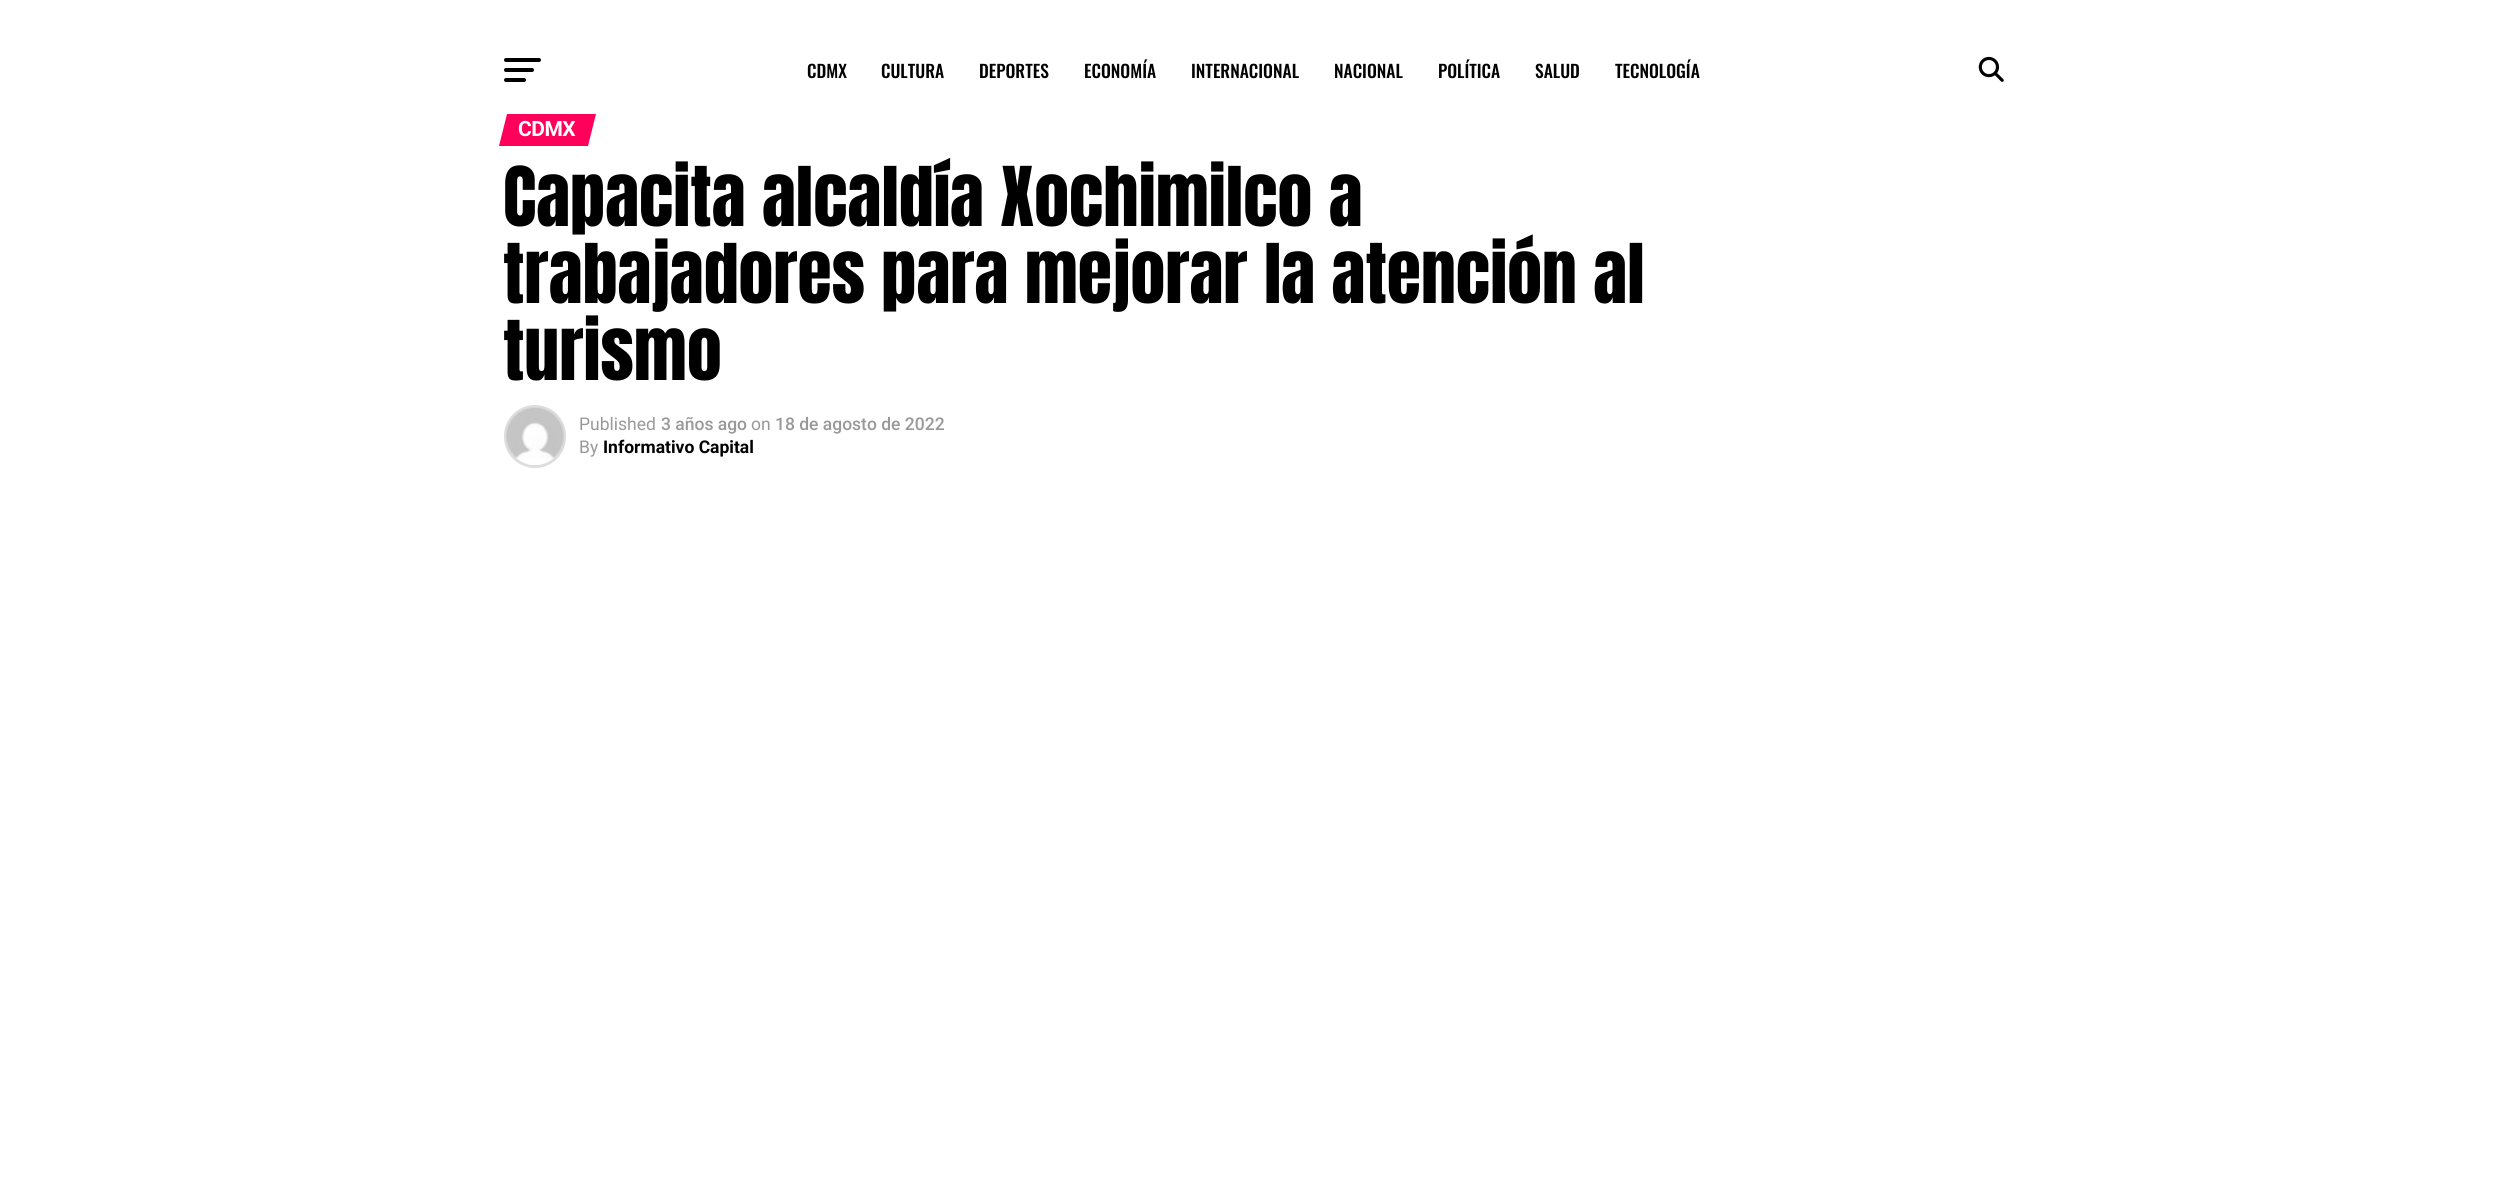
#include <cairo.h>
#include <math.h>
#include <stddef.h>

typedef struct { const char *family; double size; int italic, bold; unsigned color; } style_t;
static cairo_t *ctx;

static void ink(unsigned color) {
    cairo_set_source_rgb(ctx, (color >> 16) / 255.0, (color >> 8 & 255) / 255.0, (color & 255) / 255.0);
}

static void write(double x, double y, const char *s, const style_t *st) {
    cairo_select_font_face(ctx, st->family, st->italic ? CAIRO_FONT_SLANT_ITALIC : CAIRO_FONT_SLANT_NORMAL,
        st->bold ? CAIRO_FONT_WEIGHT_BOLD : CAIRO_FONT_WEIGHT_NORMAL);
    cairo_set_font_size(ctx, st->size);
    ink(st->color);
    cairo_move_to(ctx, x, y);
    cairo_show_text(ctx, s);
}

static void write_spaced(double x, double y, const char *s, double letter, double word) {
    cairo_move_to(ctx, x, y);
    while (*s) {
        char ch[5] = {0};
        int n = 0;
        do ch[n++] = *s++; while ((*s & 0xC0) == 0x80);
        cairo_show_text(ctx, ch);
        cairo_rel_move_to(ctx, letter + word * (*ch == ' '), 0);
    }
}

static void round_path(double x, double y, double w, double h, double r) {
    cairo_new_sub_path(ctx);
    cairo_arc(ctx, x + w - r, y + h - r, r, 0, M_PI / 2);
    cairo_arc(ctx, x + r, y + h - r, r, M_PI / 2, M_PI);
    cairo_arc(ctx, x + r, y + r, r, M_PI, 1.5 * M_PI);
    cairo_arc(ctx, x + w - r, y + r, r, 1.5 * M_PI, 2 * M_PI);
    cairo_close_path(ctx);
}

static void paste(const char *path, double x, double y, double w, double h) {
    cairo_surface_t *image = cairo_image_surface_create_from_png(path);
    cairo_save(ctx);
    cairo_set_source_surface(ctx, image, x, y);
    cairo_rectangle(ctx, x, y, w, h);
    cairo_fill(ctx);
    cairo_restore(ctx);
    cairo_surface_destroy(image);
}

static const style_t s1 = {"Oswald Medium", 17.5, 0, 0, 0x000000};
static const style_t s2 = {"Anton", 70, 0, 0, 0x000000};
static const style_t s3 = {"Roboto", 17.5, 0, 0, 0x999999};
static const style_t s4 = {"Roboto Medium", 17.5, 0, 0, 0x999999};
static const style_t s5 = {"Roboto", 17.5, 0, 1, 0x000000};

int main(void) {
    cairo_surface_t *surface = cairo_image_surface_create(CAIRO_FORMAT_RGB24, 2506, 1185);
    ctx = cairo_create(surface);
    cairo_font_options_t *options = cairo_font_options_create();
    cairo_font_options_set_hint_metrics(options, CAIRO_HINT_METRICS_OFF);
    cairo_font_options_set_hint_style(options, CAIRO_HINT_STYLE_NONE);
    cairo_set_font_options(ctx, options);
    cairo_set_miter_limit(ctx, 4);
    ink(0xffffff);
    cairo_paint(ctx);
    ink(0x000000);
    round_path(504, 58, 37, 4, 2);
    cairo_fill(ctx);
    round_path(504, 68, 30, 4, 2);
    cairo_fill(ctx);
    round_path(504, 78, 22, 4, 2);
    cairo_fill(ctx);
    write(807, 78, "CDMX", &s1);
    write(881, 78, "CULTURA", &s1);
    write(979, 78, "DEPORTES", &s1);
    write(1084, 78, "ECONOMÍA", &s1);
    write(1191, 78, "INTERNACIONAL", &s1);
    write(1334, 78, "NACIONAL", &s1);
    write(1438, 78, "POLÍTICA", &s1);
    write(1535, 78, "SALUD", &s1);
    write(1615, 78, "TECNOLOGÍA", &s1);
    paste("pic1.png", 1978, 56, 26, 26);
    ink(0xff005b);
    cairo_new_path(ctx);
    cairo_move_to(ctx, 507, 114);
    cairo_line_to(ctx, 596, 114);
    cairo_line_to(ctx, 588, 146);
    cairo_line_to(ctx, 499, 146);
    cairo_close_path(ctx);
    cairo_fill(ctx);
    cairo_select_font_face(ctx, "Roboto", CAIRO_FONT_SLANT_NORMAL, CAIRO_FONT_WEIGHT_BOLD);
    cairo_set_font_size(ctx, 21);
    ink(0xffffff);
    write_spaced(518, 136, "CDMX", -0.5, 0);
    write(503, 226, "Capacita alcaldía Xochimilco a", &s2);
    write(503, 303, "trabajadores para mejorar la atención al", &s2);
    write(503, 380, "turismo", &s2);
    round_path(505.5, 406.5, 59, 60, 29.5);
    ink(0xdddddd);
    cairo_set_line_width(ctx, 3);
    cairo_stroke(ctx);
    paste("pic2.png", 506, 407, 58, 58);
    write(579, 430, "Published", &s3);
    write(661, 430, "3 años ago", &s4);
    write(751, 430, "on", &s3);
    write(775, 430, "18 de agosto de 2022", &s4);
    write(579, 453, "By", &s3);
    write(603, 453, "Informativo Capital", &s5);
    cairo_surface_write_to_png(surface, "screenshot.png");
    cairo_font_options_destroy(options);
    cairo_destroy(ctx);
    cairo_surface_destroy(surface);
    return 0;
}
